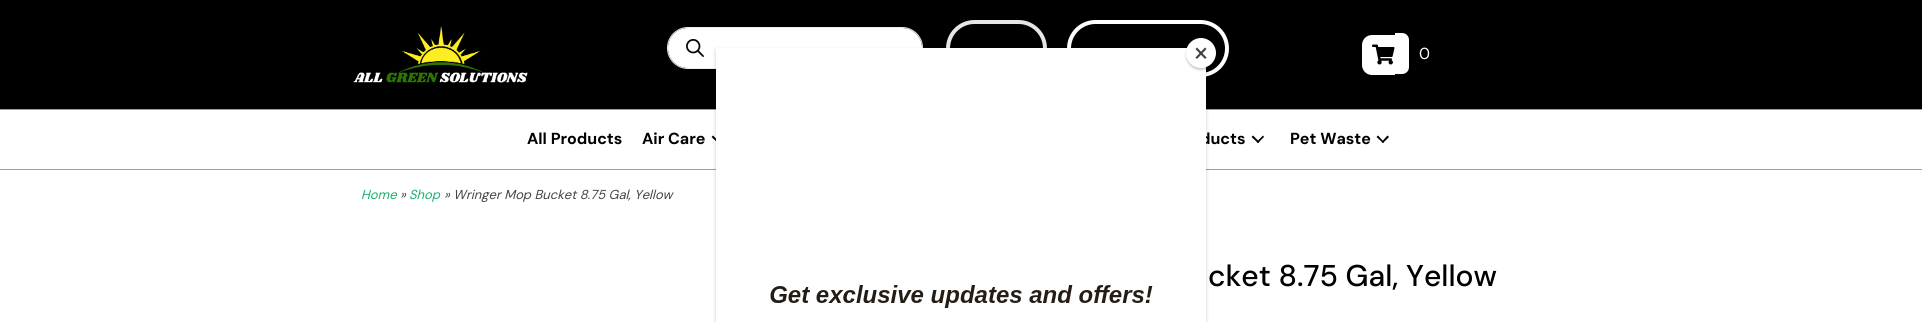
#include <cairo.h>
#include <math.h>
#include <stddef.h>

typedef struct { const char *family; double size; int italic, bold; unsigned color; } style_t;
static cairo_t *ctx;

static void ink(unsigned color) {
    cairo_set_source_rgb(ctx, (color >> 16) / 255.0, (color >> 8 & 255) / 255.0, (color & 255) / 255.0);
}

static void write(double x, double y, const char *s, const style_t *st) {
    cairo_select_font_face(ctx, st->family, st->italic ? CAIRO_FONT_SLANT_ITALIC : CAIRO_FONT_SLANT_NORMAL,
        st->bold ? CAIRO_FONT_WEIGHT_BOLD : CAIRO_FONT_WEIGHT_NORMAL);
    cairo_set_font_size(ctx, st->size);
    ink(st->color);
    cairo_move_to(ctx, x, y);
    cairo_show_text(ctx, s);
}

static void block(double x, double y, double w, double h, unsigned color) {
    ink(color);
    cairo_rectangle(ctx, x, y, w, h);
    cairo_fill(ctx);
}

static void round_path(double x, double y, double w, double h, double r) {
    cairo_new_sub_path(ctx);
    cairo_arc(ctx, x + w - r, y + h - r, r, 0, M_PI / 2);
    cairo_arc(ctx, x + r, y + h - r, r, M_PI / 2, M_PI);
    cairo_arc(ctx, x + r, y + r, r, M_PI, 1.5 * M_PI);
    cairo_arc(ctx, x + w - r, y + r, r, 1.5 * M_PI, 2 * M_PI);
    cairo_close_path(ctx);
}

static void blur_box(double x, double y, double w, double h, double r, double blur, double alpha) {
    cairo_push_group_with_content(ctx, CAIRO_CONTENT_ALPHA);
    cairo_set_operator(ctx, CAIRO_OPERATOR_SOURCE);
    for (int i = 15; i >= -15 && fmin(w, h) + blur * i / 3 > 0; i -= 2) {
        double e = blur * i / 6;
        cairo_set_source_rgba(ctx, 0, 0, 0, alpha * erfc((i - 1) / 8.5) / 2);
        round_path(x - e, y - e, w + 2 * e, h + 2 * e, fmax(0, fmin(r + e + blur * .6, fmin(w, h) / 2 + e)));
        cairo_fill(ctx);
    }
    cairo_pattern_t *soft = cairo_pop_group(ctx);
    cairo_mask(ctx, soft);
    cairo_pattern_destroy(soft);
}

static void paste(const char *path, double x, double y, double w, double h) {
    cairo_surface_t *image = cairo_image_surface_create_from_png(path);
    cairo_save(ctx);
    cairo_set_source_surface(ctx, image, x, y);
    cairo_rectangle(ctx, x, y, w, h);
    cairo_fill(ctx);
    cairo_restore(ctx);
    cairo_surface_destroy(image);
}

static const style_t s1 = {"DM Sans", 16, 0, 1, 0x000000};
static const style_t s2 = {"DM Sans", 16, 0, 0, 0xffffff};
static const style_t s3 = {"DM Sans", 13, 1, 0, 0x1cae70};
static const style_t s4 = {"DM Sans", 13, 1, 0, 0x444444};
static const style_t s5 = {"DM Sans Medium", 30, 0, 0, 0x000000};

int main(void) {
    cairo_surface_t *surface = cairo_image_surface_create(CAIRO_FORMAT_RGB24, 1922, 322);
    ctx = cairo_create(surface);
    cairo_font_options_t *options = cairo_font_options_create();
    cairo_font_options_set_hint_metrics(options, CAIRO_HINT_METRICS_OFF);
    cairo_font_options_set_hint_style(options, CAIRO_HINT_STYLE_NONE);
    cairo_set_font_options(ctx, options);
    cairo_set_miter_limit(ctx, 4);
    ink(0xffffff);
    cairo_paint(ctx);
    block(0, 0, 1922, 109, 0x000000);
    round_path(667.5, 27.5, 255, 41, 20.5);
    ink(0xeeeeee);
    cairo_set_line_width(ctx, 1);
    cairo_stroke(ctx);
    ink(0xffffff);
    round_path(669, 29, 252, 38, 19);
    cairo_fill_preserve(ctx);
    cairo_set_line_width(ctx, 2);
    cairo_stroke(ctx);
    round_path(948, 22, 97, 53, 26.5);
    ink(0xe6e6e6);
    cairo_set_line_width(ctx, 4);
    cairo_stroke(ctx);
    round_path(1069, 22, 158, 53, 26.5);
    ink(0xffffff);
    cairo_stroke(ctx);
    block(0, 109, 1922, 1, 0x9e9e9e);
    block(0, 169, 1922, 1, 0x9e9e9e);
    ink(0x000000);
    cairo_new_path(ctx);
    cairo_move_to(ctx, 713, 135.5);
    cairo_line_to(ctx, 719.5, 142);
    cairo_line_to(ctx, 718, 143);
    cairo_line_to(ctx, 711.5, 137);
    cairo_close_path(ctx);
    cairo_fill(ctx);
    ink(0x000000);
    blur_box(716, 50, 490, 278, 0, 2, 0.2);
    write(1200, 144, "ducts", &s1);
    paste("pic1.png", 716, 48, 490, 274);
    ink(0x000000);
    blur_box(1186, 40, 30, 30, 15, 1, 0.2);
    ink(0xffffff);
    cairo_arc(ctx, 1201, 53, 15, 0, 2 * M_PI);
    cairo_fill(ctx);
    ink(0x414141);
    cairo_new_path(ctx);
    cairo_move_to(ctx, 1205, 47.5);
    cairo_line_to(ctx, 1206.5, 49);
    cairo_line_to(ctx, 1197, 59);
    cairo_line_to(ctx, 1195.5, 57.5);
    cairo_close_path(ctx);
    cairo_fill(ctx);
    cairo_new_path(ctx);
    cairo_move_to(ctx, 1195.5, 49);
    cairo_line_to(ctx, 1197, 47.5);
    cairo_line_to(ctx, 1206.5, 57.5);
    cairo_line_to(ctx, 1205, 59);
    cairo_close_path(ctx);
    cairo_fill(ctx);
    paste("pic2.png", 353, 26, 175, 57);
    paste("pic3.png", 686, 39, 18, 18);
    ink(0xffffff);
    cairo_new_path(ctx);
    cairo_move_to(ctx, 1372, 35);
    cairo_line_to(ctx, 1395, 35);
    cairo_line_to(ctx, 1395, 75);
    cairo_line_to(ctx, 1372, 75);
    cairo_curve_to(ctx, 1366.5, 75, 1362, 70.5, 1362, 65);
    cairo_line_to(ctx, 1362, 45);
    cairo_curve_to(ctx, 1362, 39.5, 1366.5, 35, 1372, 35);
    cairo_close_path(ctx);
    cairo_fill(ctx);
    cairo_new_path(ctx);
    cairo_move_to(ctx, 1395, 33);
    cairo_line_to(ctx, 1402, 33);
    cairo_curve_to(ctx, 1406, 33, 1409, 36, 1409, 40);
    cairo_line_to(ctx, 1409, 67);
    cairo_curve_to(ctx, 1409, 71, 1406, 74, 1402, 74);
    cairo_line_to(ctx, 1395, 74);
    cairo_close_path(ctx);
    cairo_fill(ctx);
    paste("pic4.png", 1372, 44, 23, 21);
    write(1419, 59, "0", &s2);
    write(527, 144, "All Products", &s1);
    write(642, 144, "Air Care", &s1);
    cairo_new_path(ctx);
    cairo_move_to(ctx, 1263, 135.5);
    cairo_line_to(ctx, 1264, 137);
    cairo_line_to(ctx, 1258, 143);
    cairo_line_to(ctx, 1256.5, 142);
    cairo_close_path(ctx);
    cairo_fill(ctx);
    cairo_new_path(ctx);
    cairo_move_to(ctx, 1253, 135.5);
    cairo_line_to(ctx, 1259.5, 142);
    cairo_line_to(ctx, 1258, 143);
    cairo_line_to(ctx, 1251.5, 137);
    cairo_close_path(ctx);
    cairo_fill(ctx);
    write(1290, 144, "Pet Waste", &s1);
    cairo_new_path(ctx);
    cairo_move_to(ctx, 1387.5, 135.5);
    cairo_line_to(ctx, 1389, 137);
    cairo_line_to(ctx, 1383, 143);
    cairo_line_to(ctx, 1381.5, 142);
    cairo_close_path(ctx);
    cairo_fill(ctx);
    cairo_new_path(ctx);
    cairo_move_to(ctx, 1378, 135.5);
    cairo_line_to(ctx, 1384, 142);
    cairo_line_to(ctx, 1383, 143);
    cairo_line_to(ctx, 1376.5, 137);
    cairo_close_path(ctx);
    cairo_fill(ctx);
    write(361, 199, "Home", &s3);
    write(400, 199, "»", &s4);
    write(409, 199, "Shop", &s3);
    write(444, 199, "» Wringer Mop Bucket 8.75 Gal, Yellow", &s4);
    write(1208, 286, "cket 8.75 Gal, Yellow", &s5);
    cairo_surface_write_to_png(surface, "screenshot.png");
    cairo_font_options_destroy(options);
    cairo_destroy(ctx);
    cairo_surface_destroy(surface);
    return 0;
}
